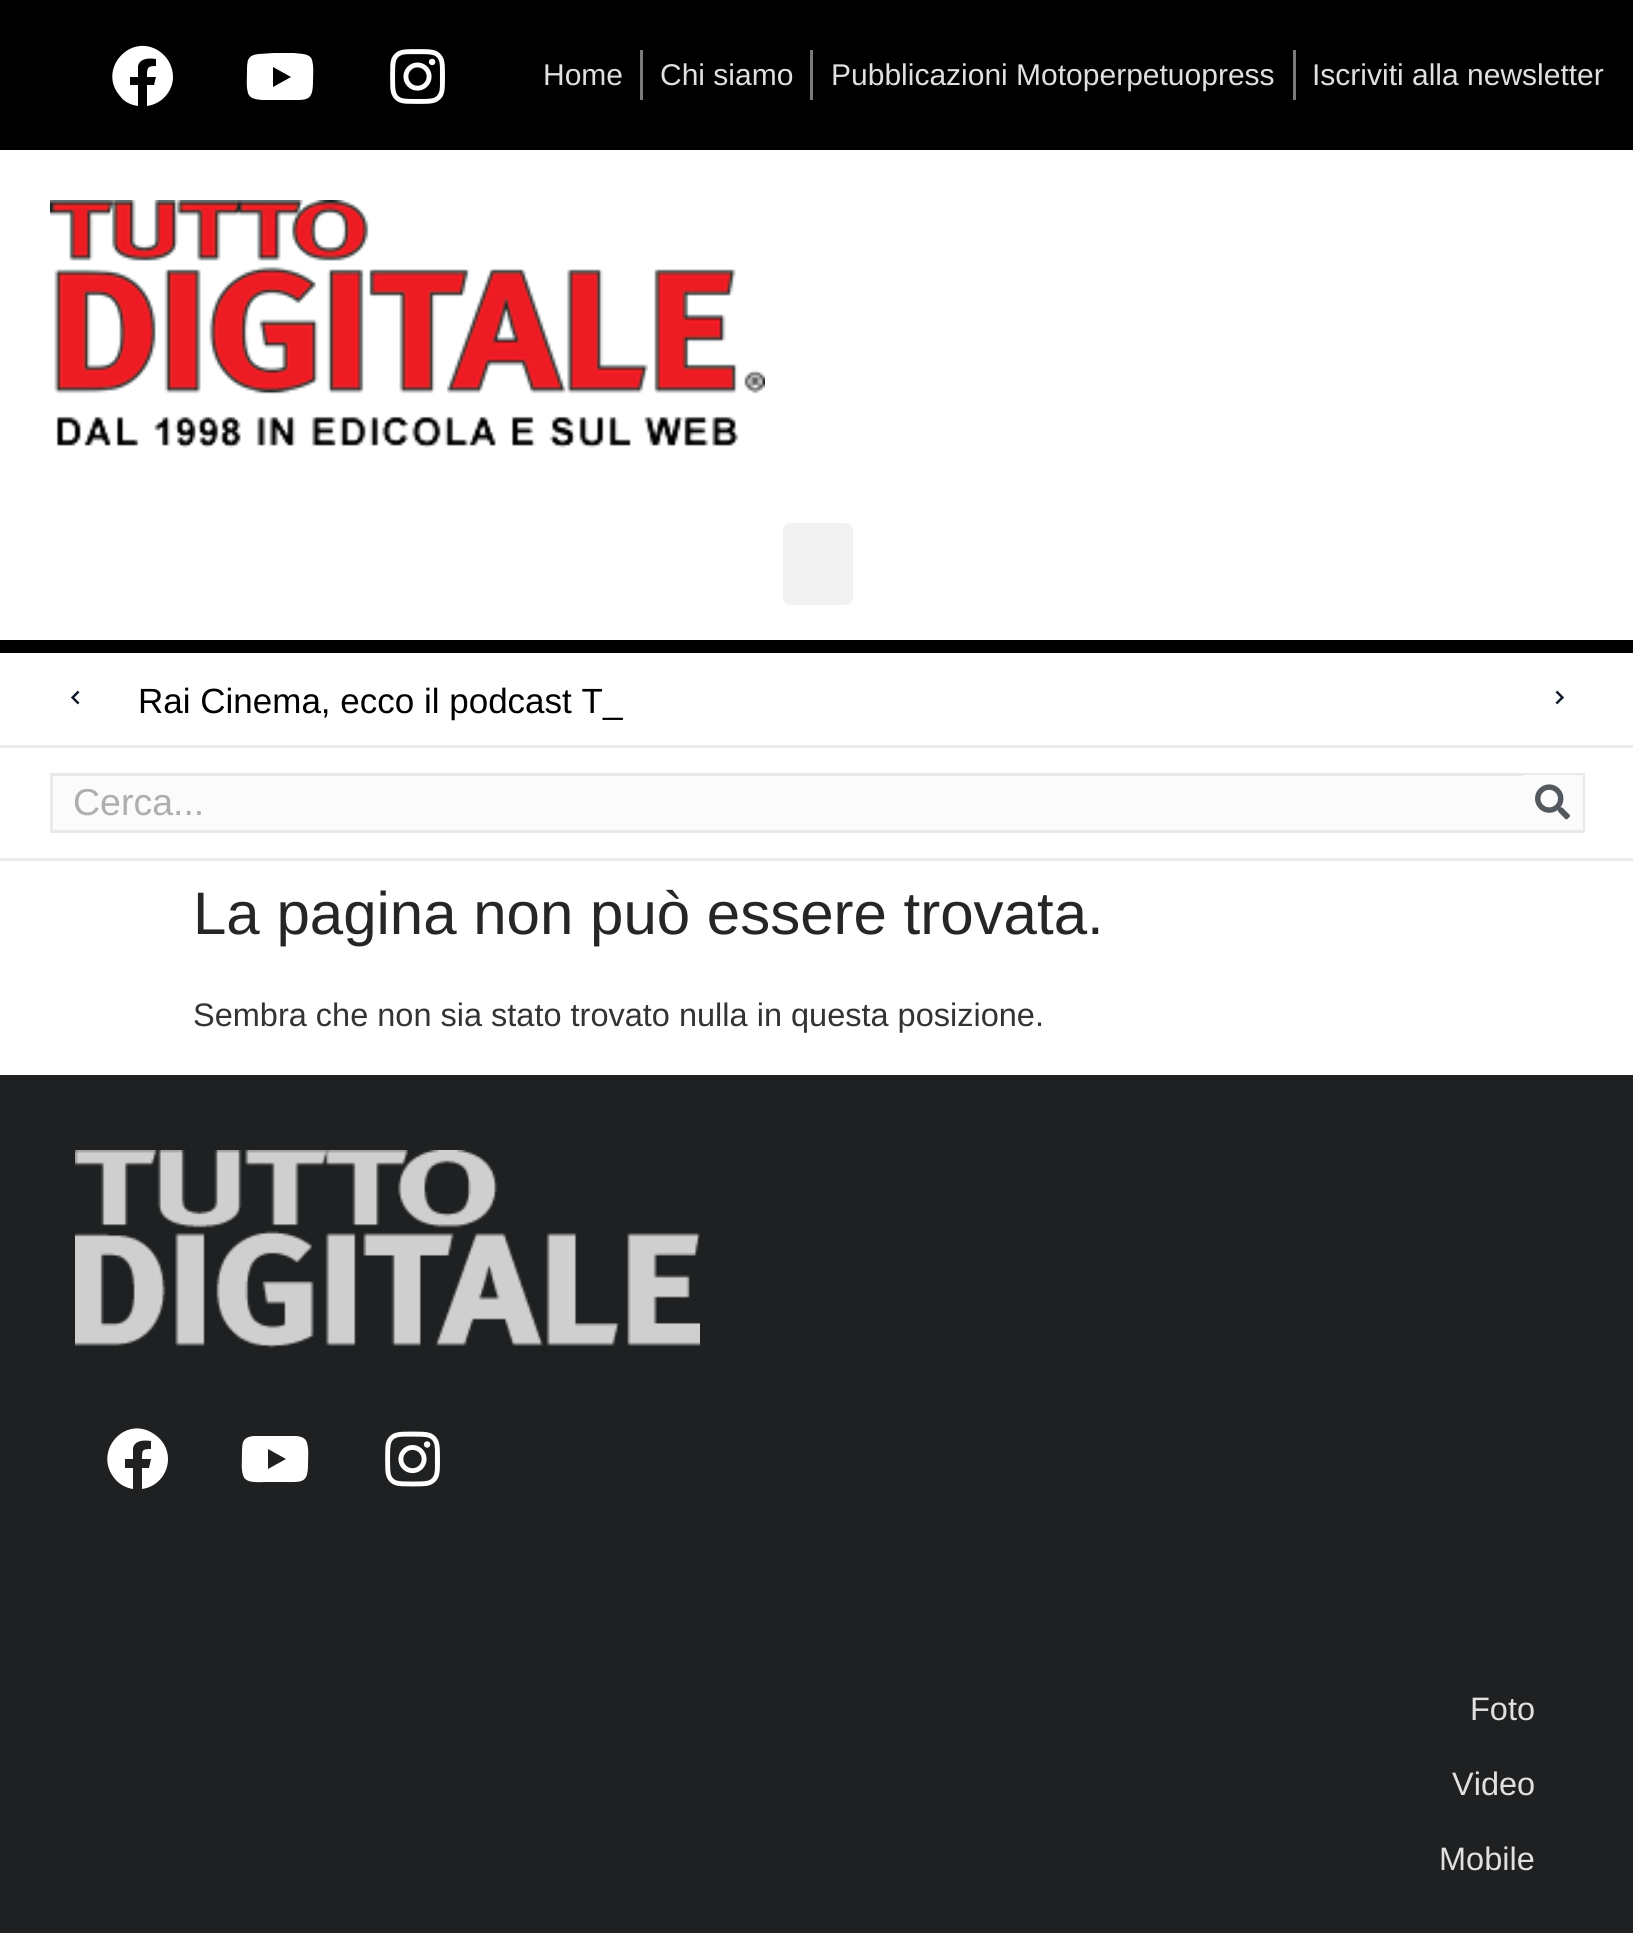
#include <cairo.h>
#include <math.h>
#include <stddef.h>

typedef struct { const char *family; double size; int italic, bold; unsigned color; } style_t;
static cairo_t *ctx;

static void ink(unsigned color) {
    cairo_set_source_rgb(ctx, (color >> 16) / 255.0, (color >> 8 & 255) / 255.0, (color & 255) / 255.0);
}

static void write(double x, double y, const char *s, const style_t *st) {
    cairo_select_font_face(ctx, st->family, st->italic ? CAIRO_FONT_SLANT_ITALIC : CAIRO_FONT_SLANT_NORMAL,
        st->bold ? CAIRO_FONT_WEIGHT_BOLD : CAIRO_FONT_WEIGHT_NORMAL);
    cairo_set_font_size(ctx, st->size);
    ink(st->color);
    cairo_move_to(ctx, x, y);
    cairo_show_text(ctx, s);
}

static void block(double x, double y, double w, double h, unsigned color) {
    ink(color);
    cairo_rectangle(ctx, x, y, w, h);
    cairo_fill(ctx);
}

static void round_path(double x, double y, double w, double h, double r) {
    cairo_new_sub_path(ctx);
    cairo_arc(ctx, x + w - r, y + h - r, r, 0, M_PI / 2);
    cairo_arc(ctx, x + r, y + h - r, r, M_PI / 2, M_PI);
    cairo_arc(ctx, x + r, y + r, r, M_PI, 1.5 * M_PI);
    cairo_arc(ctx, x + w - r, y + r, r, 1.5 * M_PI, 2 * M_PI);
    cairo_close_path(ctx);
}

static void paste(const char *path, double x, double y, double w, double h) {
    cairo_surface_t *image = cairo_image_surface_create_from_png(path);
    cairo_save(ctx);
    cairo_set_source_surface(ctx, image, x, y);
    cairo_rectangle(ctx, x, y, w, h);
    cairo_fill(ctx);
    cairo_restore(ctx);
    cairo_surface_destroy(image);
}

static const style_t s1 = {"Liberation Sans", 30, 0, 0, 0xe0e0e0};
static const style_t s2 = {"Liberation Sans", 35, 0, 0, 0x000000};
static const style_t s3 = {"Liberation Sans", 37.5, 0, 0, 0xaeaeae};
static const style_t s4 = {"Liberation Sans", 60, 0, 0, 0x262626};
static const style_t s5 = {"Liberation Sans", 32.5, 0, 0, 0x333333};
static const style_t s6 = {"Liberation Sans", 32.5, 0, 0, 0xe0e0e0};

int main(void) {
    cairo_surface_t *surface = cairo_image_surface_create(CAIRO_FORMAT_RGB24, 1633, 1933);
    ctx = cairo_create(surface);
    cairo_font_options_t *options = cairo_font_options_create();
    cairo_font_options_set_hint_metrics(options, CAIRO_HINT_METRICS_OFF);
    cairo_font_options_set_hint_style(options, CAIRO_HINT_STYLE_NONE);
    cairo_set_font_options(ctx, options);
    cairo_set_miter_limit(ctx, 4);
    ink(0xffffff);
    cairo_paint(ctx);
    block(0, 0, 1633, 150, 0x000000);
    ink(0xffffff);
    cairo_new_path(ctx);
    cairo_move_to(ctx, 173, 77);
    cairo_curve_to(ctx, 173, 91, 162, 104, 147, 106);
    cairo_line_to(ctx, 147, 85);
    cairo_line_to(ctx, 154, 85);
    cairo_line_to(ctx, 156, 77);
    cairo_line_to(ctx, 147, 77);
    cairo_curve_to(ctx, 147, 68, 147, 66, 156, 66);
    cairo_line_to(ctx, 156, 59);
    cairo_curve_to(ctx, 149, 58, 140, 58, 138, 66);
    cairo_line_to(ctx, 138, 77);
    cairo_line_to(ctx, 130, 77);
    cairo_line_to(ctx, 130, 85);
    cairo_line_to(ctx, 138, 85);
    cairo_line_to(ctx, 138, 106);
    cairo_curve_to(ctx, 131, 105, 124, 102, 120, 96);
    cairo_curve_to(ctx, 97, 70, 130, 32, 159, 51);
    cairo_curve_to(ctx, 168, 57, 173, 67, 173, 77);
    cairo_close_path(ctx);
    cairo_fill(ctx);
    cairo_new_path(ctx);
    cairo_move_to(ctx, 312, 60);
    cairo_curve_to(ctx, 314, 67, 313, 74, 313, 81);
    cairo_curve_to(ctx, 313, 102, 307, 100, 287, 100);
    cairo_line_to(ctx, 271, 100);
    cairo_curve_to(ctx, 264, 100, 250, 101, 248, 93);
    cairo_curve_to(ctx, 246, 86, 247, 79, 247, 72);
    cairo_curve_to(ctx, 247, 61, 247, 55, 259, 54);
    cairo_line_to(ctx, 274, 53);
    cairo_line_to(ctx, 294, 53);
    cairo_curve_to(ctx, 300, 54, 310, 53, 312, 60);
    cairo_close_path(ctx);
    cairo_move_to(ctx, 273, 87);
    cairo_line_to(ctx, 291, 77);
    cairo_line_to(ctx, 273, 67);
    cairo_close_path(ctx);
    cairo_fill(ctx);
    paste("pic1.png", 390, 49, 55, 55);
    write(543, 85, "Home", &s1);
    block(640, 50, 3, 50, 0x7a7a7a);
    write(660, 85, "Chi siamo", &s1);
    block(810, 50, 3, 50, 0x7a7a7a);
    write(831, 85, "Pubblicazioni Motoperpetuopress", &s1);
    block(1293, 50, 3, 50, 0x7a7a7a);
    write(1312, 85, "Iscriviti alla newsletter", &s1);
    paste("pic2.png", 50, 200, 715, 248);
    block(0, 640, 1633, 13, 0x000000);
    ink(0xf2f2f2);
    round_path(783, 523, 70, 82, 8);
    cairo_fill(ctx);
    block(0, 745, 1633, 3, 0xececec);
    paste("pic3.png", 70, 690, 10, 15);
    write(138, 713, "Rai Cinema, ecco il podcast T_", &s2);
    paste("pic4.png", 1555, 690, 10, 15);
    block(0, 858, 1633, 3, 0xececec);
    block(53, 776, 1470, 54, 0xfbfbfb);
    cairo_rectangle(ctx, 51.5, 774.5, 1532, 57);
    ink(0xe9e9e9);
    cairo_set_line_width(ctx, 3);
    cairo_stroke(ctx);
    write(73, 815, "Cerca...", &s3);
    block(1523, 775, 60, 55, 0xfbfbfb);
    paste("pic5.png", 1535, 784, 35, 36);
    write(193, 934, "La pagina non può essere trovata.", &s4);
    write(193, 1026, "Sembra che non sia stato trovato nulla in questa posizione.", &s5);
    block(0, 1075, 1633, 858, 0x1e2021);
    paste("pic6.png", 75, 1150, 625, 198);
    ink(0xffffff);
    cairo_new_path(ctx);
    cairo_move_to(ctx, 168, 1459);
    cairo_curve_to(ctx, 168, 1474, 157, 1487, 142, 1489);
    cairo_line_to(ctx, 142, 1468);
    cairo_line_to(ctx, 149, 1468);
    cairo_line_to(ctx, 151, 1459);
    cairo_line_to(ctx, 142, 1459);
    cairo_curve_to(ctx, 142, 1450, 142, 1449, 151, 1449);
    cairo_line_to(ctx, 151, 1441);
    cairo_curve_to(ctx, 144, 1440, 135, 1440, 133, 1448);
    cairo_line_to(ctx, 133, 1459);
    cairo_line_to(ctx, 125, 1459);
    cairo_line_to(ctx, 125, 1468);
    cairo_line_to(ctx, 133, 1468);
    cairo_line_to(ctx, 133, 1489);
    cairo_curve_to(ctx, 126, 1488, 119, 1484, 115, 1479);
    cairo_curve_to(ctx, 92, 1452, 125, 1414, 154, 1434);
    cairo_curve_to(ctx, 163, 1440, 168, 1449, 168, 1459);
    cairo_close_path(ctx);
    cairo_fill(ctx);
    cairo_new_path(ctx);
    cairo_move_to(ctx, 307, 1443);
    cairo_curve_to(ctx, 309, 1450, 308, 1457, 308, 1464);
    cairo_curve_to(ctx, 308, 1484, 302, 1482, 282, 1482);
    cairo_line_to(ctx, 266, 1482);
    cairo_curve_to(ctx, 259, 1482, 245, 1484, 243, 1475);
    cairo_curve_to(ctx, 241, 1469, 242, 1461, 242, 1454);
    cairo_curve_to(ctx, 242, 1443, 242, 1437, 254, 1436);
    cairo_line_to(ctx, 269, 1436);
    cairo_line_to(ctx, 289, 1436);
    cairo_curve_to(ctx, 295, 1436, 305, 1435, 307, 1443);
    cairo_close_path(ctx);
    cairo_move_to(ctx, 268, 1469);
    cairo_line_to(ctx, 286, 1459);
    cairo_line_to(ctx, 268, 1449);
    cairo_close_path(ctx);
    cairo_fill(ctx);
    paste("pic7.png", 385, 1431, 55, 56);
    write(1470, 1720, "Foto", &s6);
    write(1452, 1795, "Video", &s6);
    write(1439, 1870, "Mobile", &s6);
    cairo_surface_write_to_png(surface, "screenshot.png");
    cairo_font_options_destroy(options);
    cairo_destroy(ctx);
    cairo_surface_destroy(surface);
    return 0;
}
